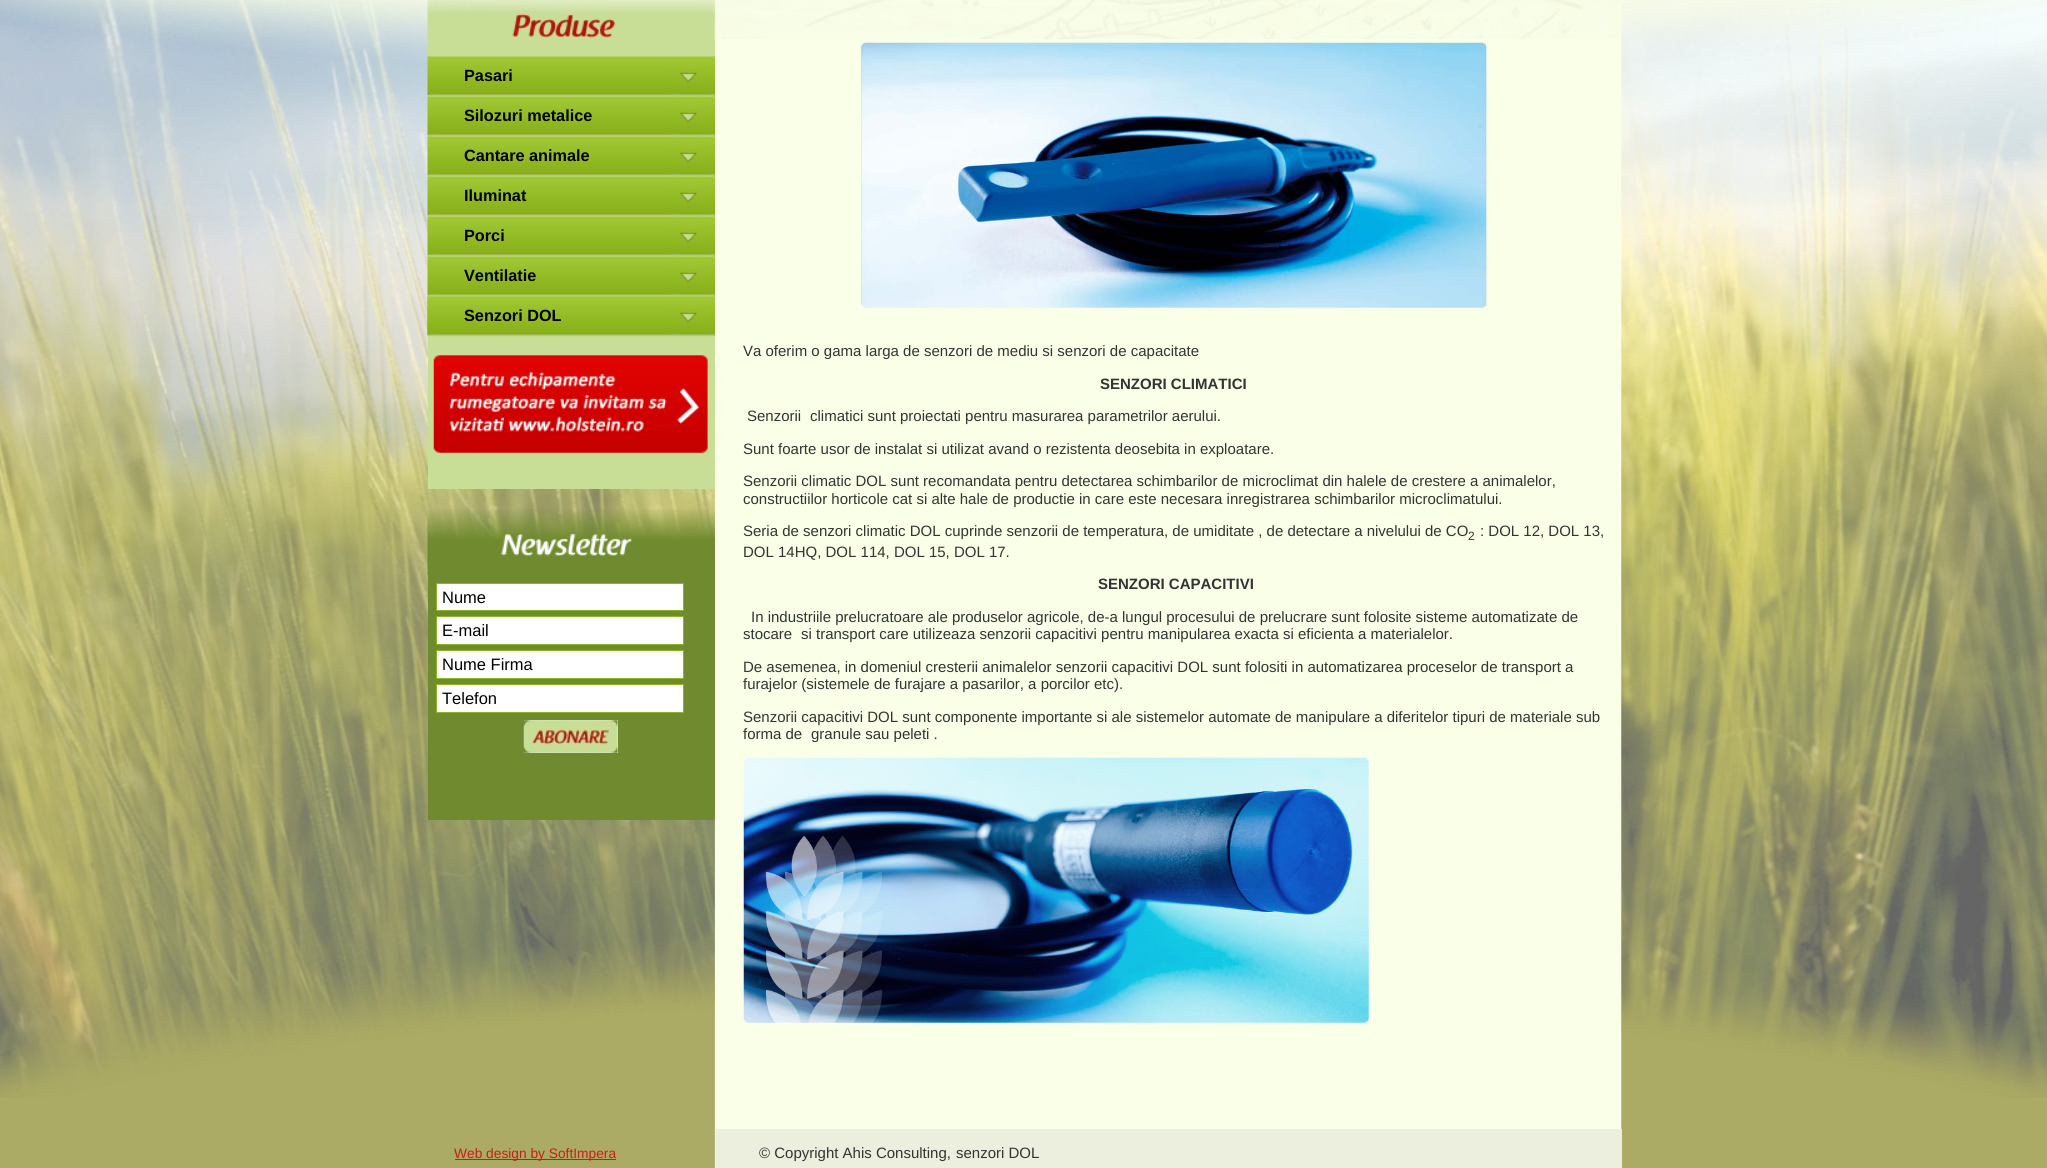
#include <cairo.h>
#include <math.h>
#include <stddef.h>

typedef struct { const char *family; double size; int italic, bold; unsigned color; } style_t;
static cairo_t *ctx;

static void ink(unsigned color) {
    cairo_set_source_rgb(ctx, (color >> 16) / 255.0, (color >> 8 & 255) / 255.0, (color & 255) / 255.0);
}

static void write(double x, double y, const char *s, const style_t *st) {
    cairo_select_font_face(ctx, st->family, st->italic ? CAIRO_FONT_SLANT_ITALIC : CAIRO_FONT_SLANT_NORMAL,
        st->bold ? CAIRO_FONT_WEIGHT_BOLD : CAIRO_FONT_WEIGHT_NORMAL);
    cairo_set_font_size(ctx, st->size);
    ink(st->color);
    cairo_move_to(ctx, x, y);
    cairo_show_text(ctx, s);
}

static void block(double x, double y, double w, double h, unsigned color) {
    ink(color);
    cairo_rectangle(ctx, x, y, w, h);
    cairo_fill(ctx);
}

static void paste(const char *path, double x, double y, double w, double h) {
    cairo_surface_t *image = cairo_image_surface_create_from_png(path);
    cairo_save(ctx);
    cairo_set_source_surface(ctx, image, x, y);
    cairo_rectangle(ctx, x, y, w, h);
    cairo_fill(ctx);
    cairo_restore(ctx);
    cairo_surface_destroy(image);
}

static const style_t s1 = {"Liberation Sans", 16.25, 0, 1, 0x000000};
static const style_t s2 = {"Liberation Sans", 16.5, 0, 0, 0x000000};
static const style_t s3 = {"Liberation Sans", 15, 0, 0, 0x333333};
static const style_t s4 = {"Liberation Sans", 15, 0, 1, 0x333333};
static const style_t s5 = {"Liberation Sans", 12, 0, 0, 0x333333};
static const style_t s6 = {"Liberation Sans", 13.75, 0, 0, 0xc61e18};

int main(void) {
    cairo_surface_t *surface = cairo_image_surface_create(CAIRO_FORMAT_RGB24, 2047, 1168);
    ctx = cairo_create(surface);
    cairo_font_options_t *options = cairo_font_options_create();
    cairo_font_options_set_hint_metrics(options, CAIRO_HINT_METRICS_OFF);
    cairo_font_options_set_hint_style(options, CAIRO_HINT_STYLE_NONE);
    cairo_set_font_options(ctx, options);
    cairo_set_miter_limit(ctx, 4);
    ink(0xacab65);
    cairo_paint(ctx);
    paste("pic1.png", 0, 0, 2047, 1098);
    paste("pic2.png", 714, 0, 908, 1168);
    paste("pic3.png", 427, 0, 1194, 39);
    block(428, 39, 287, 450, 0xc8dd96);
    paste("pic4.png", 427, 56, 288, 41);
    write(464, 81, "Pasari", &s1);
    paste("pic5.png", 427, 96, 288, 41);
    write(464, 121, "Silozuri metalice", &s1);
    paste("pic6.png", 427, 136, 288, 41);
    write(464, 161, "Cantare animale", &s1);
    paste("pic7.png", 427, 176, 288, 41);
    write(464, 201, "Iluminat", &s1);
    paste("pic8.png", 427, 216, 288, 41);
    write(464, 241, "Porci", &s1);
    paste("pic9.png", 427, 256, 288, 41);
    write(464, 281, "Ventilatie", &s1);
    paste("pic10.png", 427, 296, 288, 41);
    paste("pic11.png", 427, 296, 288, 41);
    write(464, 321, "Senzori DOL", &s1);
    paste("pic12.png", 433, 355, 275, 98);
    paste("pic13.png", 427, 509, 288, 67);
    block(428, 575, 287, 245, 0x708b2f);
    ink(0xffffff);
    cairo_rectangle(ctx, 436.5, 583.5, 247, 27);
    cairo_fill_preserve(ctx);
    ink(0x8db521);
    cairo_set_line_width(ctx, 1);
    cairo_stroke(ctx);
    write(442, 603, "Nume", &s2);
    ink(0xffffff);
    cairo_rectangle(ctx, 436.5, 616.5, 247, 28);
    cairo_fill_preserve(ctx);
    ink(0x8db521);
    cairo_stroke(ctx);
    write(442, 636, "E-mail", &s2);
    ink(0xffffff);
    cairo_rectangle(ctx, 436.5, 650.5, 247, 28);
    cairo_fill_preserve(ctx);
    ink(0x8db521);
    cairo_stroke(ctx);
    write(442, 670, "Nume Firma", &s2);
    ink(0xffffff);
    cairo_rectangle(ctx, 436.5, 684.5, 247, 28);
    cairo_fill_preserve(ctx);
    ink(0x8db521);
    cairo_stroke(ctx);
    write(442, 704, "Telefon", &s2);
    block(524, 720, 94, 33, 0xefefef);
    paste("pic14.png", 523, 720, 95, 33);
    block(715, 43, 1, 1086, 0xfaffe7);
    paste("pic15.png", 861, 42, 626, 266);
    write(743, 356, "Va oferim o gama larga de senzori de mediu si senzori de capacitate", &s3);
    write(1100, 389, "SENZORI CLIMATICI", &s4);
    write(747, 421, "Senzorii", &s3);
    write(810, 421, "climatici sunt proiectati pentru masurarea parametrilor aerului.", &s3);
    write(743, 454, "Sunt foarte usor de instalat si utilizat avand o rezistenta deosebita in exploatare.", &s3);
    write(743, 486, "Senzorii climatic DOL sunt recomandata pentru detectarea schimbarilor de microclimat din halele de crestere a animalelor,", &s3);
    write(743, 504, "constructiilor horticole cat si alte hale de productie in care este necesara inregistrarea schimbarilor microclimatului.", &s3);
    write(743, 536, "Seria de senzori climatic DOL cuprinde senzorii de temperatura, de umiditate , de detectare a nivelului de CO", &s3);
    write(1468, 540, "2", &s5);
    write(1480, 536, ": DOL 12, DOL 13,", &s3);
    write(743, 557, "DOL 14HQ, DOL 114, DOL 15, DOL 17.", &s3);
    write(1098, 589, "SENZORI CAPACITIVI", &s4);
    write(751, 622, "In industriile prelucratoare ale produselor agricole, de-a lungul procesului de prelucrare sunt folosite sisteme automatizate de", &s3);
    write(743, 639, "stocare", &s3);
    write(801, 639, "si transport care utilizeaza senzorii capacitivi pentru manipularea exacta si eficienta a materialelor.", &s3);
    write(743, 672, "De asemenea, in domeniul cresterii animalelor senzorii capacitivi DOL sunt folositi in automatizarea proceselor de transport a", &s3);
    write(743, 689, "furajelor (sistemele de furajare a pasarilor, a porcilor etc).", &s3);
    write(743, 722, "Senzorii capacitivi DOL sunt componente importante si ale sistemelor automate de manipulare a diferitelor tipuri de materiale sub", &s3);
    write(743, 739, "forma de", &s3);
    write(811, 739, "granule sau peleti .", &s3);
    paste("pic16.png", 743, 757, 626, 266);
    block(716, 1129, 906, 39, 0xecefde);
    block(455, 1159, 161, 1, 0xc61e18);
    write(454, 1158, "Web design by SoftImpera", &s6);
    write(759, 1158, "© Copyright Ahis Consulting,", &s3);
    write(956, 1158, "senzori DOL", &s3);
    cairo_surface_write_to_png(surface, "screenshot.png");
    cairo_font_options_destroy(options);
    cairo_destroy(ctx);
    cairo_surface_destroy(surface);
    return 0;
}
